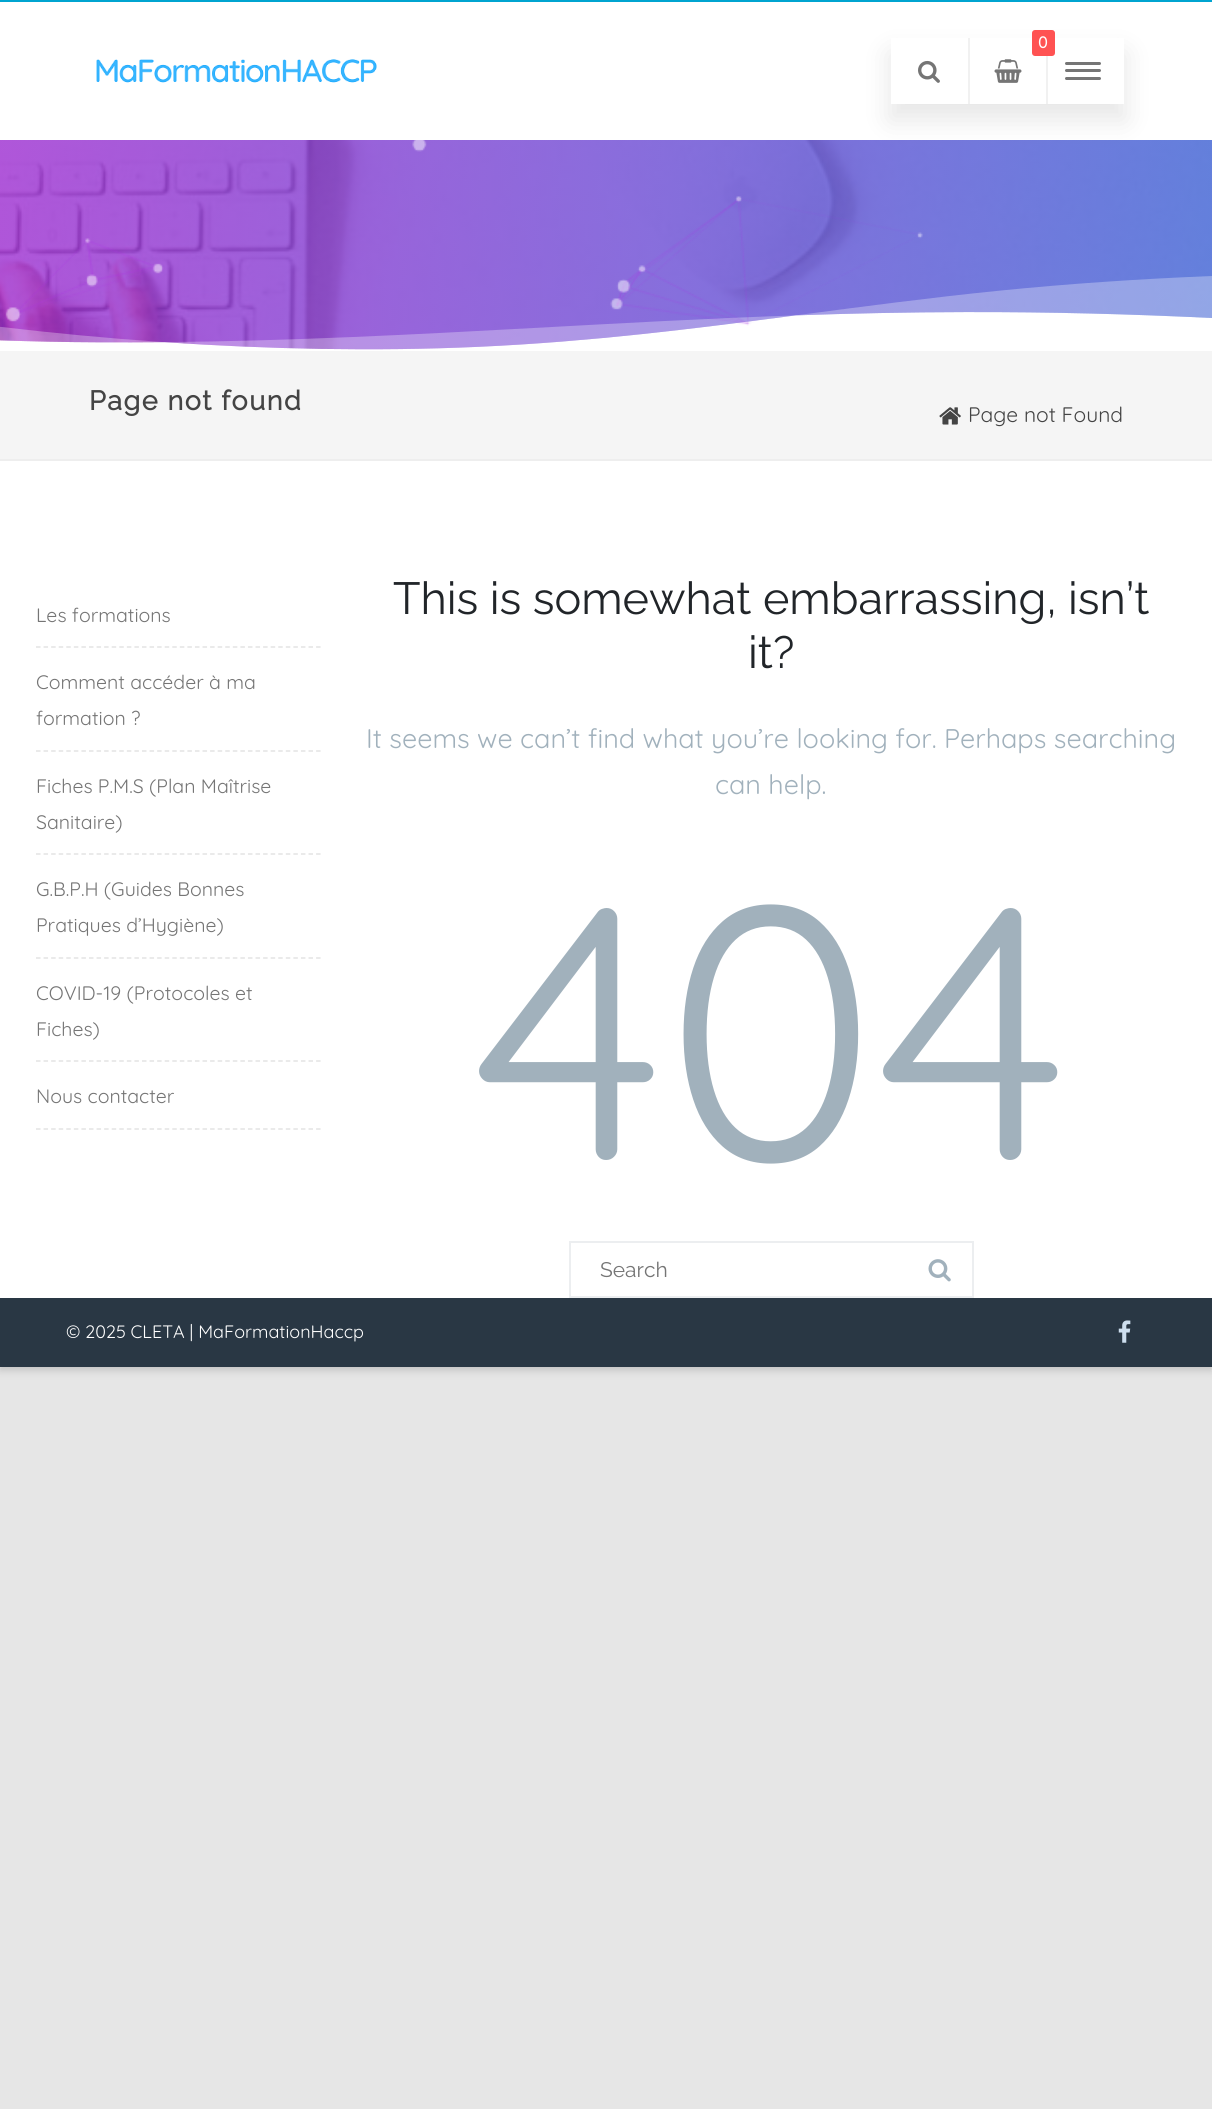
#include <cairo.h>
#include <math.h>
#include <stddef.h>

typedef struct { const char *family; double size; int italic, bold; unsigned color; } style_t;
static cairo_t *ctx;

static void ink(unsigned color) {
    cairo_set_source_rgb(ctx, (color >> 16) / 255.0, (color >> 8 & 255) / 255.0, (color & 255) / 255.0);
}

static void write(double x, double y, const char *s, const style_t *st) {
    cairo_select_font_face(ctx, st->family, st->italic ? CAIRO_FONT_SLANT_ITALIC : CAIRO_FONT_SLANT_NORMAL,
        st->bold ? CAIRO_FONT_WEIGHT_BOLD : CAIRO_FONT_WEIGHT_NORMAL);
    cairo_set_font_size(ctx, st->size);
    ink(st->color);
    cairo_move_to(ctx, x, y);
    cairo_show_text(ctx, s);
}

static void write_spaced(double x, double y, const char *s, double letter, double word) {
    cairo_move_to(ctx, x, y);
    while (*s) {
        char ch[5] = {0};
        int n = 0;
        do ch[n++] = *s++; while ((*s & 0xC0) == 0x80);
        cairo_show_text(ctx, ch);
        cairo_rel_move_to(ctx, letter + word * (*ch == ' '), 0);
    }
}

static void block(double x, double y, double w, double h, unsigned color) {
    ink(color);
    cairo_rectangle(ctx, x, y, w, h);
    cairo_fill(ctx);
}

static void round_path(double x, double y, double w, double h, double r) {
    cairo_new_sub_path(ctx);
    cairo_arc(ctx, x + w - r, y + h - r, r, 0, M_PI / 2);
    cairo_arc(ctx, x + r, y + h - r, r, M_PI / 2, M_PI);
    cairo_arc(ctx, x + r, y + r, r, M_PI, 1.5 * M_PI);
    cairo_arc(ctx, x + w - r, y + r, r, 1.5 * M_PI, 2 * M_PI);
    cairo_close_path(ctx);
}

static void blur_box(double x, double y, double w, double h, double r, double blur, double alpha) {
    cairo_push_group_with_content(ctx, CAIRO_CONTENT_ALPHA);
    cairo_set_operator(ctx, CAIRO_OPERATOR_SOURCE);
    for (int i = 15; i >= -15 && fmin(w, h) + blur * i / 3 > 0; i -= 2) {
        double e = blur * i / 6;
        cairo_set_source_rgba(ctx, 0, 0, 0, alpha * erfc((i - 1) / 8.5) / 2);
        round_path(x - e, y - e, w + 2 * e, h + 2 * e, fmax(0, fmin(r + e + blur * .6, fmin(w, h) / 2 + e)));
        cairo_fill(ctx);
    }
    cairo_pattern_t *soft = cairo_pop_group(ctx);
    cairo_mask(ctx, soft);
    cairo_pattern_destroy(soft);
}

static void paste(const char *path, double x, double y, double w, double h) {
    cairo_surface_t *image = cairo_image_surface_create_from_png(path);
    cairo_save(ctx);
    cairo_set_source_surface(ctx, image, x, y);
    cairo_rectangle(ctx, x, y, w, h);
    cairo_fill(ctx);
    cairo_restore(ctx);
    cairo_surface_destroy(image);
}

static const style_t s1 = {"Quicksand", 16, 0, 1, 0xffffff};
static const style_t s2 = {"Quicksand", 21, 0, 0, 0x444444};
static const style_t s3 = {"Quicksand", 19.5, 0, 0, 0x757575};
static const style_t s4 = {"Raleway", 45, 0, 0, 0x212529};
static const style_t s5 = {"Quicksand", 27, 0, 0, 0xa1b1bc};
static const style_t s6 = {"Quicksand", 360, 0, 0, 0xa1b1bc};
static const style_t s7 = {"Raleway", 21, 0, 0, 0x757575};
static const style_t s8 = {"Quicksand", 18, 0, 0, 0xffffff};

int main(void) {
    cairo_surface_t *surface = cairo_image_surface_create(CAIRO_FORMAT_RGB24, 1212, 2109);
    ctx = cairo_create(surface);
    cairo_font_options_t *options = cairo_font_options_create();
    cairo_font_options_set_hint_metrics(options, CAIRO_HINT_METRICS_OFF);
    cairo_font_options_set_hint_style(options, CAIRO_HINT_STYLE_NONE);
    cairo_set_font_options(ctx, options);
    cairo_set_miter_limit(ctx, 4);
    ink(0xe6e6e6);
    cairo_paint(ctx);
    ink(0x646464);
    blur_box(0, 3, 1212, 1367, 0, 4.5, 0.3);
    block(0, 461, 1212, 837, 0xffffff);
    block(0, 2, 1212, 138, 0xffffff);
    block(0, 0, 1212, 2, 0x00a4d0);
    paste("pic4.png", 0, 140, 1212, 210);
    paste("pic5.png", 0, 276, 1212, 75);
    paste("pic6.png", 5, 140, 918, 186);
    cairo_save(ctx);
    cairo_set_fill_rule(ctx, CAIRO_FILL_RULE_EVEN_ODD);
    cairo_new_path(ctx);
    cairo_move_to(ctx, 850, 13);
    cairo_line_to(ctx, 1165, 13);
    cairo_line_to(ctx, 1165, 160);
    cairo_line_to(ctx, 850, 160);
    cairo_close_path(ctx);
    cairo_move_to(ctx, 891, 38);
    cairo_line_to(ctx, 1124, 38);
    cairo_line_to(ctx, 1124, 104);
    cairo_line_to(ctx, 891, 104);
    cairo_close_path(ctx);
    cairo_clip(ctx);
    ink(0x404040);
    blur_box(890, 53, 235, 67, 0, 13, 0.13);
    cairo_restore(ctx);
    cairo_set_source_rgba(ctx, 0.906, 0.906, 0.906, 0.6);
    cairo_rectangle(ctx, 968, 38, 2, 66);
    cairo_fill(ctx);
    paste("pic1.png", 918, 60, 22, 23);
    ink(0xff5252);
    round_path(1032, 30, 23, 26, 3);
    cairo_fill(ctx);
    write(1038, 48, "0", &s1);
    cairo_set_source_rgba(ctx, 0.906, 0.906, 0.906, 0.6);
    cairo_rectangle(ctx, 1046, 56, 2, 48);
    cairo_fill(ctx);
    paste("pic2.png", 994, 59, 28, 24);
    ink(0x757575);
    round_path(1065, 62, 36, 3, 1.5);
    cairo_fill(ctx);
    round_path(1065, 69, 36, 3, 1.5);
    cairo_fill(ctx);
    round_path(1065, 77, 36, 3, 1.5);
    cairo_fill(ctx);
    paste("pic3.png", 96, 59, 281, 24);
    block(0, 351, 1212, 108, 0xf5f5f5);
    block(0, 459, 1212, 2, 0xeeeeee);
    cairo_select_font_face(ctx, "Raleway", CAIRO_FONT_SLANT_NORMAL, CAIRO_FONT_WEIGHT_BOLD);
    cairo_set_font_size(ctx, 27);
    ink(0x444444);
    write_spaced(89, 410, "Page not found", 1.5, 0);
    paste("pic7.png", 939, 407, 22, 18);
    write(968, 422, "Page not Found", &s2);
    cairo_new_path(ctx);
    cairo_move_to(ctx, 36, 647);
    cairo_line_to(ctx, 321, 647);
    ink(0xe3e3e3);
    cairo_set_line_width(ctx, 1.5);
    cairo_set_dash(ctx, (double[]){4.5, 3.07}, 2, 0);
    cairo_stroke(ctx);
    write(36, 622, "Les formations", &s3);
    cairo_new_path(ctx);
    cairo_move_to(ctx, 36, 751);
    cairo_line_to(ctx, 321, 751);
    ink(0xe3e3e3);
    cairo_stroke(ctx);
    write(36, 689, "Comment accéder à ma", &s3);
    write(36, 725, "formation ?", &s3);
    cairo_new_path(ctx);
    cairo_move_to(ctx, 36, 854);
    cairo_line_to(ctx, 321, 854);
    ink(0xe3e3e3);
    cairo_stroke(ctx);
    write(36, 793, "Fiches P.M.S (Plan Maîtrise", &s3);
    write(36, 829, "Sanitaire)", &s3);
    cairo_new_path(ctx);
    cairo_move_to(ctx, 36, 958);
    cairo_line_to(ctx, 321, 958);
    ink(0xe3e3e3);
    cairo_stroke(ctx);
    write(36, 896, "G.B.P.H (Guides Bonnes", &s3);
    write(36, 932, "Pratiques d’Hygiène)", &s3);
    cairo_new_path(ctx);
    cairo_move_to(ctx, 36, 1061);
    cairo_line_to(ctx, 321, 1061);
    ink(0xe3e3e3);
    cairo_stroke(ctx);
    write(36, 1000, "COVID-19 (Protocoles et", &s3);
    write(36, 1036, "Fiches)", &s3);
    cairo_new_path(ctx);
    cairo_move_to(ctx, 36, 1129);
    cairo_line_to(ctx, 321, 1129);
    ink(0xe3e3e3);
    cairo_stroke(ctx);
    write(36, 1103, "Nous contacter", &s3);
    write(393, 614, "This is somewhat embarrassing, isn’t", &s4);
    write(748, 668, "it?", &s4);
    write(366, 748, "It seems we can’t find what you’re looking for. Perhaps searching", &s5);
    write(715, 794, "can help.", &s5);
    write(474, 1160, "404", &s6);
    cairo_rectangle(ctx, 570, 1242, 403, 55);
    ink(0xeceef0);
    cairo_set_line_width(ctx, 2);
    cairo_set_dash(ctx, NULL, 0, 0);
    cairo_stroke(ctx);
    write(600, 1277, "Search", &s7);
    paste("pic8.png", 928, 1259, 23, 23);
    block(0, 1298, 1212, 69, 0x293744);
    write(66, 1338, "© 2025 CLETA | MaFormationHaccp", &s8);
    paste("pic9.png", 1118, 1320, 13, 23);
    cairo_surface_write_to_png(surface, "screenshot.png");
    cairo_font_options_destroy(options);
    cairo_destroy(ctx);
    cairo_surface_destroy(surface);
    return 0;
}
